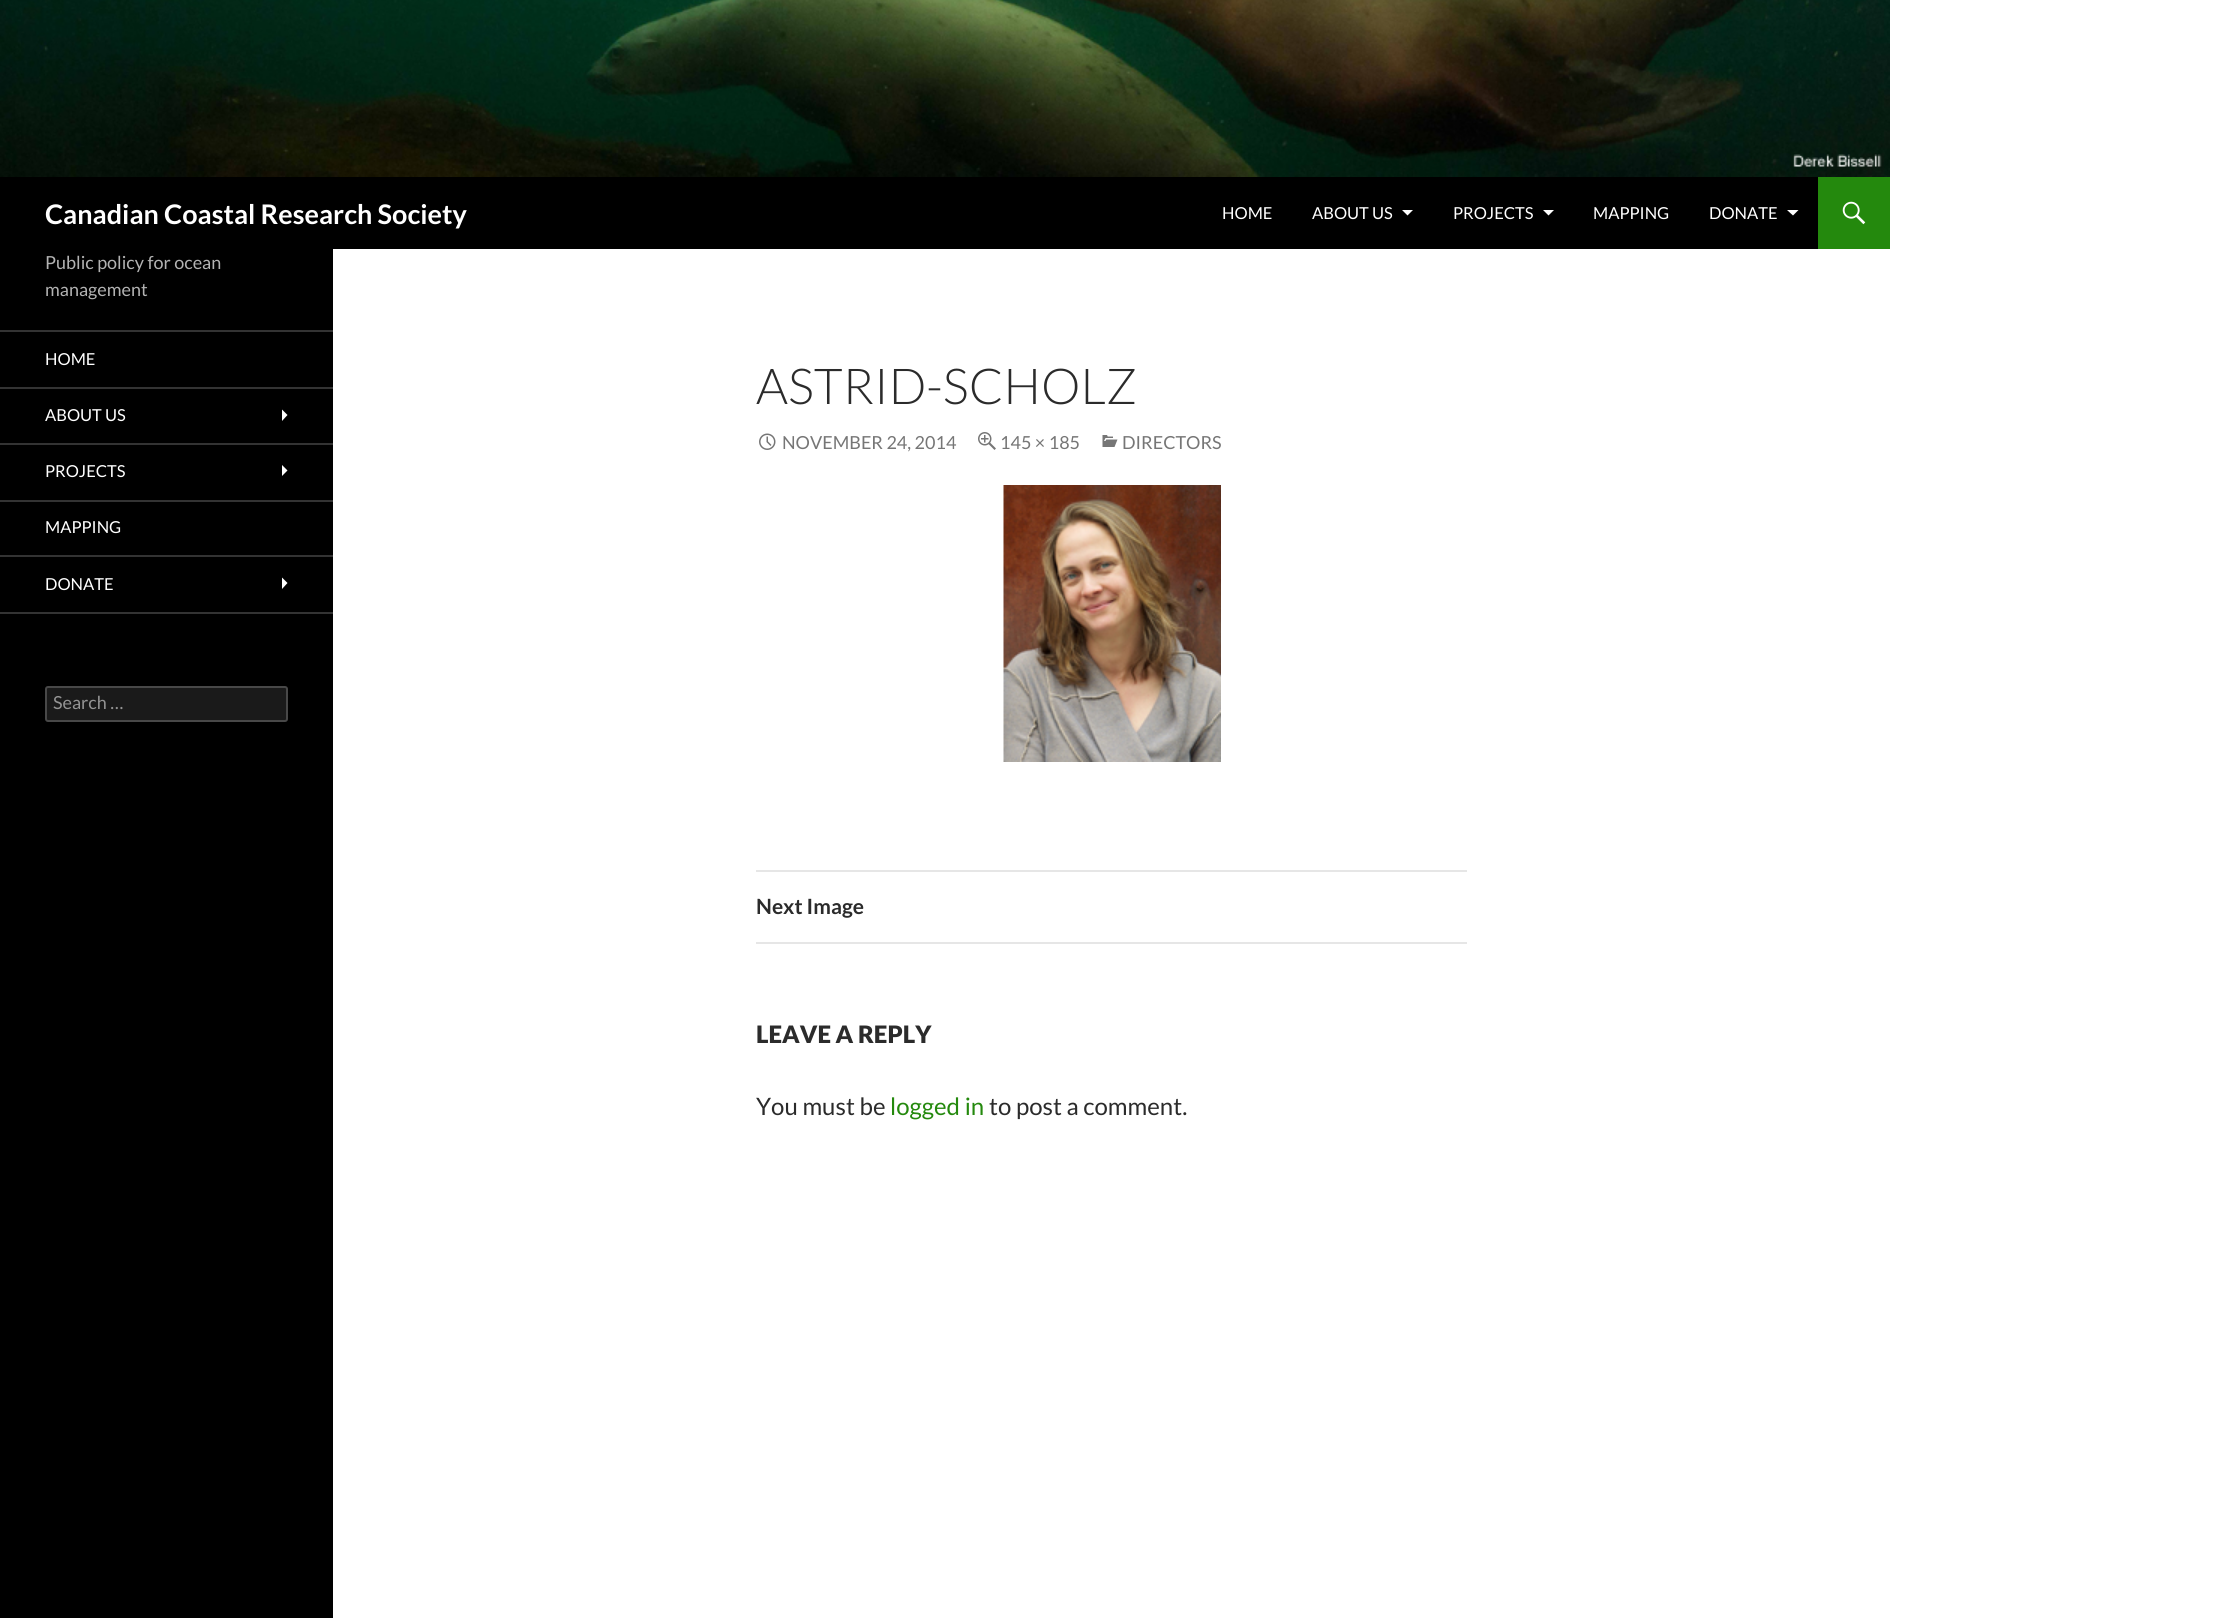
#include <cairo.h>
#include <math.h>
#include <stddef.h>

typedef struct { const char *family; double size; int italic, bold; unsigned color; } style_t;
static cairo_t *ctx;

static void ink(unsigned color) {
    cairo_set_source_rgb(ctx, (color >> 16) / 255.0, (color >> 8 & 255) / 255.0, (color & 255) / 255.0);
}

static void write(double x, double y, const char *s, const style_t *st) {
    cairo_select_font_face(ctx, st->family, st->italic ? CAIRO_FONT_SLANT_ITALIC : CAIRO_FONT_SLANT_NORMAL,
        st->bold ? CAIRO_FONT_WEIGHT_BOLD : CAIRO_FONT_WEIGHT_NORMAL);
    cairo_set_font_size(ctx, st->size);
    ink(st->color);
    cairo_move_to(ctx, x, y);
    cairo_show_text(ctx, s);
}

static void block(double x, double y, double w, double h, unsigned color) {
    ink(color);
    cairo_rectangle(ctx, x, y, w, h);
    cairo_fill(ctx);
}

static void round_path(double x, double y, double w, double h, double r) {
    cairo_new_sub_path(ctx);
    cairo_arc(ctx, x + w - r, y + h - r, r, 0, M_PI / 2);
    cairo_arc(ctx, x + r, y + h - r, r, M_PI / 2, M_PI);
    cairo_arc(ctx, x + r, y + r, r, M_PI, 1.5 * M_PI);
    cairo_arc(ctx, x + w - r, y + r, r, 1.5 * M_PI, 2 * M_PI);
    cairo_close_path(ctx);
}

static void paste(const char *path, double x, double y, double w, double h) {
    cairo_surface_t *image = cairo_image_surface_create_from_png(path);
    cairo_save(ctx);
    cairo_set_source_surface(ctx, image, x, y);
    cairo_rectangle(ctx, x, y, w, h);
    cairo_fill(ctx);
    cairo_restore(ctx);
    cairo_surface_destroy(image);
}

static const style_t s1 = {"Lato", 27, 0, 1, 0xffffff};
static const style_t s2 = {"Lato", 16.5, 0, 0, 0xffffff};
static const style_t s3 = {"Lato", 18, 0, 0, 0xb3b3b3};
static const style_t s4 = {"Lato", 18, 0, 0, 0x939393};
static const style_t s5 = {"Lato Light", 49.5, 0, 0, 0x2b2b2b};
static const style_t s6 = {"Lato", 18, 0, 0, 0x767676};
static const style_t s7 = {"Lato", 21, 0, 1, 0x2b2b2b};
static const style_t s8 = {"Lato Black", 24, 0, 0, 0x2b2b2b};
static const style_t s9 = {"Lato", 24, 0, 0, 0x2b2b2b};
static const style_t s10 = {"Lato", 24, 0, 0, 0x24890d};

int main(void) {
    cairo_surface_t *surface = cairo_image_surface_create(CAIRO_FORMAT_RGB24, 2220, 1618);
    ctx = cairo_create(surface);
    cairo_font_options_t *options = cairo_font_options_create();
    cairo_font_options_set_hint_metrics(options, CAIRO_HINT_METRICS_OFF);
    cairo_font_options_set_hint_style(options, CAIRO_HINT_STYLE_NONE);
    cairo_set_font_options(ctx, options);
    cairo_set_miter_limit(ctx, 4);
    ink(0xffffff);
    cairo_paint(ctx);
    paste("pic1.png", 0, 0, 1890, 177);
    block(0, 177, 1818, 72, 0x000000);
    write(45, 224, "Canadian Coastal Research Society", &s1);
    write(1222, 219, "HOME", &s2);
    write(1312, 219, "ABOUT US", &s2);
    cairo_new_path(ctx);
    cairo_move_to(ctx, 1402, 210);
    cairo_line_to(ctx, 1407.5, 215.5);
    cairo_line_to(ctx, 1413, 210);
    cairo_close_path(ctx);
    cairo_fill(ctx);
    write(1453, 219, "PROJECTS", &s2);
    cairo_new_path(ctx);
    cairo_move_to(ctx, 1543, 210);
    cairo_line_to(ctx, 1548.5, 215.5);
    cairo_line_to(ctx, 1554, 210);
    cairo_close_path(ctx);
    cairo_fill(ctx);
    write(1593, 219, "MAPPING", &s2);
    write(1709, 219, "DONATE", &s2);
    cairo_new_path(ctx);
    cairo_move_to(ctx, 1787, 210);
    cairo_line_to(ctx, 1793, 215.5);
    cairo_line_to(ctx, 1798.5, 210);
    cairo_close_path(ctx);
    cairo_fill(ctx);
    block(1818, 177, 72, 72, 0x24890d);
    paste("pic2.png", 1842, 201, 24, 24);
    block(0, 249, 333, 1369, 0x000000);
    write(45, 269, "Public policy for ocean", &s3);
    write(45, 296, "management", &s3);
    block(0, 612, 333, 2, 0x333333);
    block(0, 330, 333, 2, 0x333333);
    write(45, 365, "HOME", &s2);
    block(0, 387, 333, 2, 0x333333);
    write(45, 421, "ABOUT US", &s2);
    cairo_new_path(ctx);
    cairo_move_to(ctx, 282, 421);
    cairo_line_to(ctx, 287.5, 415);
    cairo_line_to(ctx, 282, 409.5);
    cairo_close_path(ctx);
    cairo_fill(ctx);
    block(0, 443, 333, 2, 0x333333);
    write(45, 477, "PROJECTS", &s2);
    cairo_new_path(ctx);
    cairo_move_to(ctx, 282, 476);
    cairo_line_to(ctx, 287.5, 470.5);
    cairo_line_to(ctx, 282, 465);
    cairo_close_path(ctx);
    cairo_fill(ctx);
    block(0, 500, 333, 2, 0x333333);
    write(45, 533, "MAPPING", &s2);
    block(0, 555, 333, 2, 0x333333);
    write(45, 590, "DONATE", &s2);
    cairo_new_path(ctx);
    cairo_move_to(ctx, 282, 589);
    cairo_line_to(ctx, 287.5, 583);
    cairo_line_to(ctx, 282, 577.5);
    cairo_close_path(ctx);
    cairo_fill(ctx);
    ink(0x1a1a1a);
    round_path(45, 686, 243, 36, 3);
    cairo_fill(ctx);
    round_path(46, 687, 241, 34, 2);
    cairo_set_source_rgba(ctx, 1, 1, 1, 0.2);
    cairo_stroke(ctx);
    write(53, 709, "Search …", &s4);
    write(756, 404, "ASTRID-SCHOLZ", &s5);
    paste("pic3.png", 759, 433, 17, 17);
    write(782, 449, "NOVEMBER 24, 2014", &s6);
    paste("pic4.png", 978, 432, 18, 18);
    write(1000, 449, "145 × 185", &s6);
    paste("pic5.png", 1102, 435, 16, 12);
    write(1122, 449, "DIRECTORS", &s6);
    paste("pic6.png", 1003, 485, 218, 277);
    block(756, 870, 711, 2, 0xe6e6e6);
    block(756, 942, 711, 2, 0xe6e6e6);
    write(756, 914, "Next Image", &s7);
    write(756, 1043, "LEAVE A REPLY", &s8);
    write(756, 1115, "You must be", &s9);
    write(890, 1115, "logged in", &s10);
    write(989, 1115, "to post a comment.", &s9);
    cairo_surface_write_to_png(surface, "screenshot.png");
    cairo_font_options_destroy(options);
    cairo_destroy(ctx);
    cairo_surface_destroy(surface);
    return 0;
}
